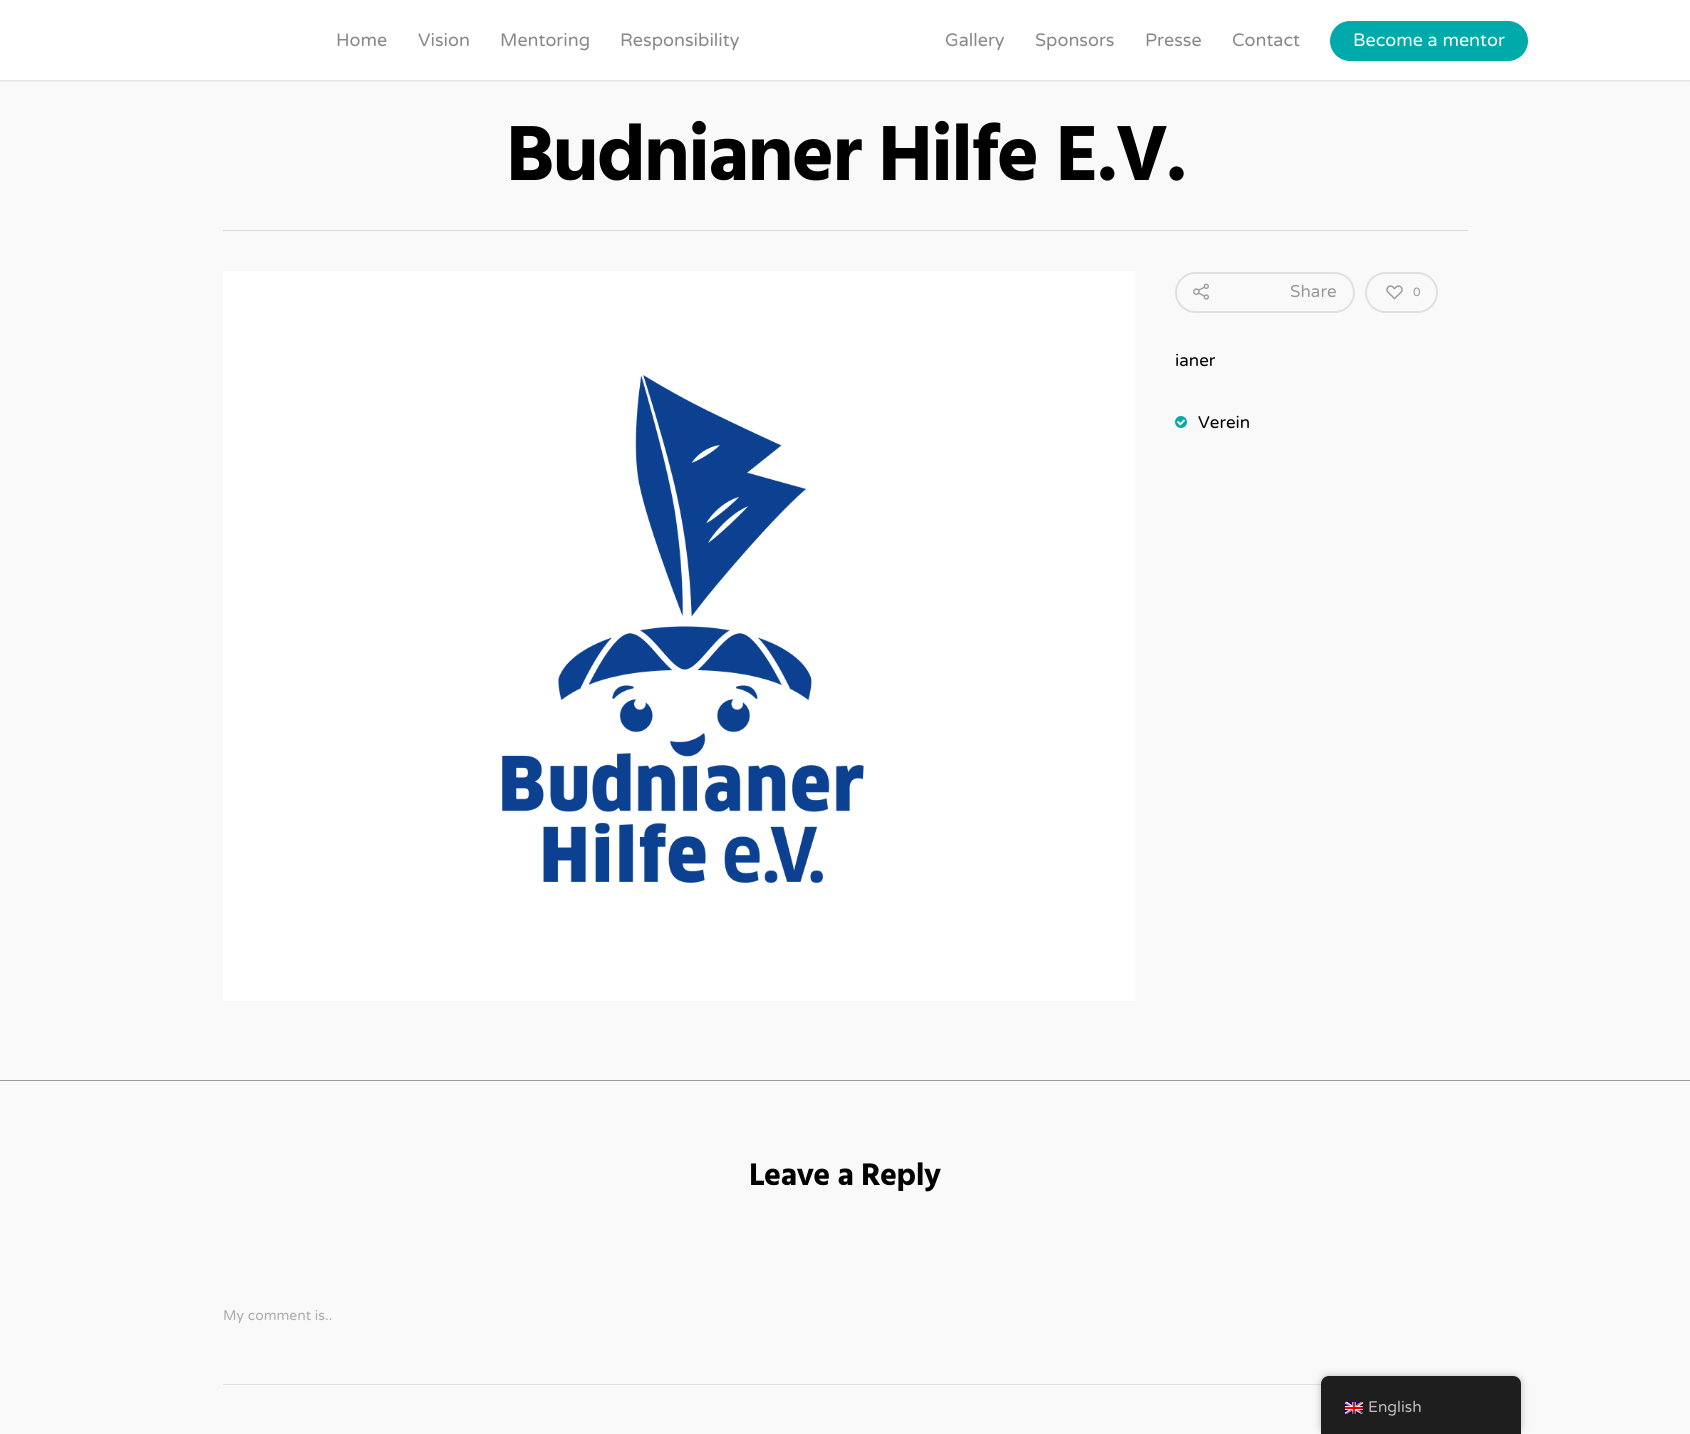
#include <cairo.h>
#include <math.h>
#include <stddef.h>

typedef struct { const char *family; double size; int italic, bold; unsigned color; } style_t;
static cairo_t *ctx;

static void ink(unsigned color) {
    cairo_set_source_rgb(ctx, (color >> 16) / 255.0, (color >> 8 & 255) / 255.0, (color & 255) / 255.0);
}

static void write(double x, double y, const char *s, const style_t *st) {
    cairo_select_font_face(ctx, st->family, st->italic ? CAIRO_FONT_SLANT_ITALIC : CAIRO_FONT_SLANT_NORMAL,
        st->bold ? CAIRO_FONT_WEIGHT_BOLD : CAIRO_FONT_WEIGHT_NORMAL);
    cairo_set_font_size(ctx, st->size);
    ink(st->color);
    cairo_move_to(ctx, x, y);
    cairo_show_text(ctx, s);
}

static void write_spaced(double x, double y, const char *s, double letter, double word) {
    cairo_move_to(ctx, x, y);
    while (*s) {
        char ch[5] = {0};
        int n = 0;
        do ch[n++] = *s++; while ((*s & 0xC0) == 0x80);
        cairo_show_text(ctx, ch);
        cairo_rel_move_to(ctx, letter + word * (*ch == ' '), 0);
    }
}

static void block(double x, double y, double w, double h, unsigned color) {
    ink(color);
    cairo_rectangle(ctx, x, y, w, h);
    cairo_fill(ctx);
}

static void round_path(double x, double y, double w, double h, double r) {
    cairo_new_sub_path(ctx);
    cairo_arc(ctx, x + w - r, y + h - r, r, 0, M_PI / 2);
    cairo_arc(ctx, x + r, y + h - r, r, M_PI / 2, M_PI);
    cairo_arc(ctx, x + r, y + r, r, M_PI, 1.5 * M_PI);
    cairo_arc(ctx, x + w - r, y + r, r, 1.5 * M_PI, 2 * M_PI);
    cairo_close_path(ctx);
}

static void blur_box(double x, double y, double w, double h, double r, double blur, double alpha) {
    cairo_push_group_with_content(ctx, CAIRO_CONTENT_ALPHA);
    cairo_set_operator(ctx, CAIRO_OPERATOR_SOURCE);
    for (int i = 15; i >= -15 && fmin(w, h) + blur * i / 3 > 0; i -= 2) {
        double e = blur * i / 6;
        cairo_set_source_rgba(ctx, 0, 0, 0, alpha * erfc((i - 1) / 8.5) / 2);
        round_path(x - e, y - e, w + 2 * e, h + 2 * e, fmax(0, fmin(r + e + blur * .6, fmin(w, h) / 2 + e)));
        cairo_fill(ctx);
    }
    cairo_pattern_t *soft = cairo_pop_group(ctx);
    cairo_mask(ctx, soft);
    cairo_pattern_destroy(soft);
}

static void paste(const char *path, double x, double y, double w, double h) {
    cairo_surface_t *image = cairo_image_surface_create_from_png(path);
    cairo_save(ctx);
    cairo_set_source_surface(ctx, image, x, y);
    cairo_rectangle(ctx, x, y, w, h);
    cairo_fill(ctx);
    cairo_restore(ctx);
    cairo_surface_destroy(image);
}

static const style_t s1 = {"Varela Round", 18, 0, 0, 0x888888};
static const style_t s2 = {"Varela Round", 18, 0, 0, 0xffffff};
static const style_t s3 = {"Varela Round", 17, 0, 0, 0x999999};
static const style_t s4 = {"Varela Round", 12, 0, 0, 0x999999};
static const style_t s5 = {"Varela Round", 17, 0, 0, 0x000000};
static const style_t s6 = {"Varela Round", 14, 0, 0, 0xacacac};
static const style_t s7 = {"Varela Round", 15.5, 0, 0, 0xbdbdbd};

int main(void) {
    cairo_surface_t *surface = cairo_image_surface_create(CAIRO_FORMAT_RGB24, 1690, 1434);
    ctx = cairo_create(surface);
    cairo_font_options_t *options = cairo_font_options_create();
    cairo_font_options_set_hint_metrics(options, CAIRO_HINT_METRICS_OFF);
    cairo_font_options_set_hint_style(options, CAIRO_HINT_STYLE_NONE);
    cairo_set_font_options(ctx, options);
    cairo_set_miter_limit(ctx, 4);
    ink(0xf9f9f9);
    cairo_paint(ctx);
    ink(0x000000);
    blur_box(0, 0, 1690, 80, 0, 1.5, 0.22);
    block(0, 0, 1690, 80, 0xffffff);
    write(336, 46, "Home", &s1);
    write(418, 46, "Vision", &s1);
    write(500, 46, "Mentoring", &s1);
    write(620, 46, "Responsibility", &s1);
    write(945, 46, "Gallery", &s1);
    write(1035, 46, "Sponsors", &s1);
    write(1145, 46, "Presse", &s1);
    write(1232, 46, "Contact", &s1);
    ink(0x00aaaa);
    round_path(1330, 21, 198, 40, 20);
    cairo_fill(ctx);
    write(1353, 46, "Become a mentor", &s2);
    block(223, 230, 1245, 1, 0xdddddd);
    cairo_select_font_face(ctx, "Hind", CAIRO_FONT_SLANT_NORMAL, CAIRO_FONT_WEIGHT_BOLD);
    cairo_set_font_size(ctx, 80);
    ink(0x000000);
    write_spaced(506, 180, "Budnianer Hilfe E.V.", -2, 0);
    paste("pic1.png", 223, 271, 912, 730);
    round_path(1176, 273, 178, 39, 19.5);
    ink(0xe0e0e0);
    cairo_stroke(ctx);
    paste("pic2.png", 1193, 283, 16, 17);
    write(1290, 297, "Share", &s3);
    round_path(1366, 273, 71, 39, 19.5);
    ink(0xe0e0e0);
    cairo_stroke(ctx);
    paste("pic3.png", 1386, 285, 17, 15);
    write(1413, 296, "0", &s4);
    write(1175, 366, "ianer", &s5);
    paste("pic4.png", 1175, 416, 12, 12);
    write(1198, 428, "Verein", &s5);
    block(0, 1080, 1690, 1, 0x999999);
    cairo_select_font_face(ctx, "Hind", CAIRO_FONT_SLANT_NORMAL, CAIRO_FONT_WEIGHT_BOLD);
    cairo_set_font_size(ctx, 32);
    ink(0x000000);
    write_spaced(749, 1185, "Leave a Reply", -0.5, 0);
    write(223, 1320, "My comment is..", &s6);
    block(223, 1384, 1098, 1, 0xe0e0e0);
    ink(0x000000);
    blur_box(1321, 1376, 200, 58, 8, 4, 0.25);
    ink(0x1e1e1e);
    cairo_new_path(ctx);
    cairo_move_to(ctx, 1329, 1376);
    cairo_line_to(ctx, 1513, 1376);
    cairo_curve_to(ctx, 1517.5, 1376, 1521, 1379.5, 1521, 1384);
    cairo_line_to(ctx, 1521, 1434);
    cairo_line_to(ctx, 1321, 1434);
    cairo_line_to(ctx, 1321, 1384);
    cairo_curve_to(ctx, 1321, 1379.5, 1324.5, 1376, 1329, 1376);
    cairo_close_path(ctx);
    cairo_fill(ctx);
    paste("pic5.png", 1345, 1402, 18, 12);
    write(1368, 1412, "English", &s7);
    cairo_surface_write_to_png(surface, "screenshot.png");
    cairo_font_options_destroy(options);
    cairo_destroy(ctx);
    cairo_surface_destroy(surface);
    return 0;
}
